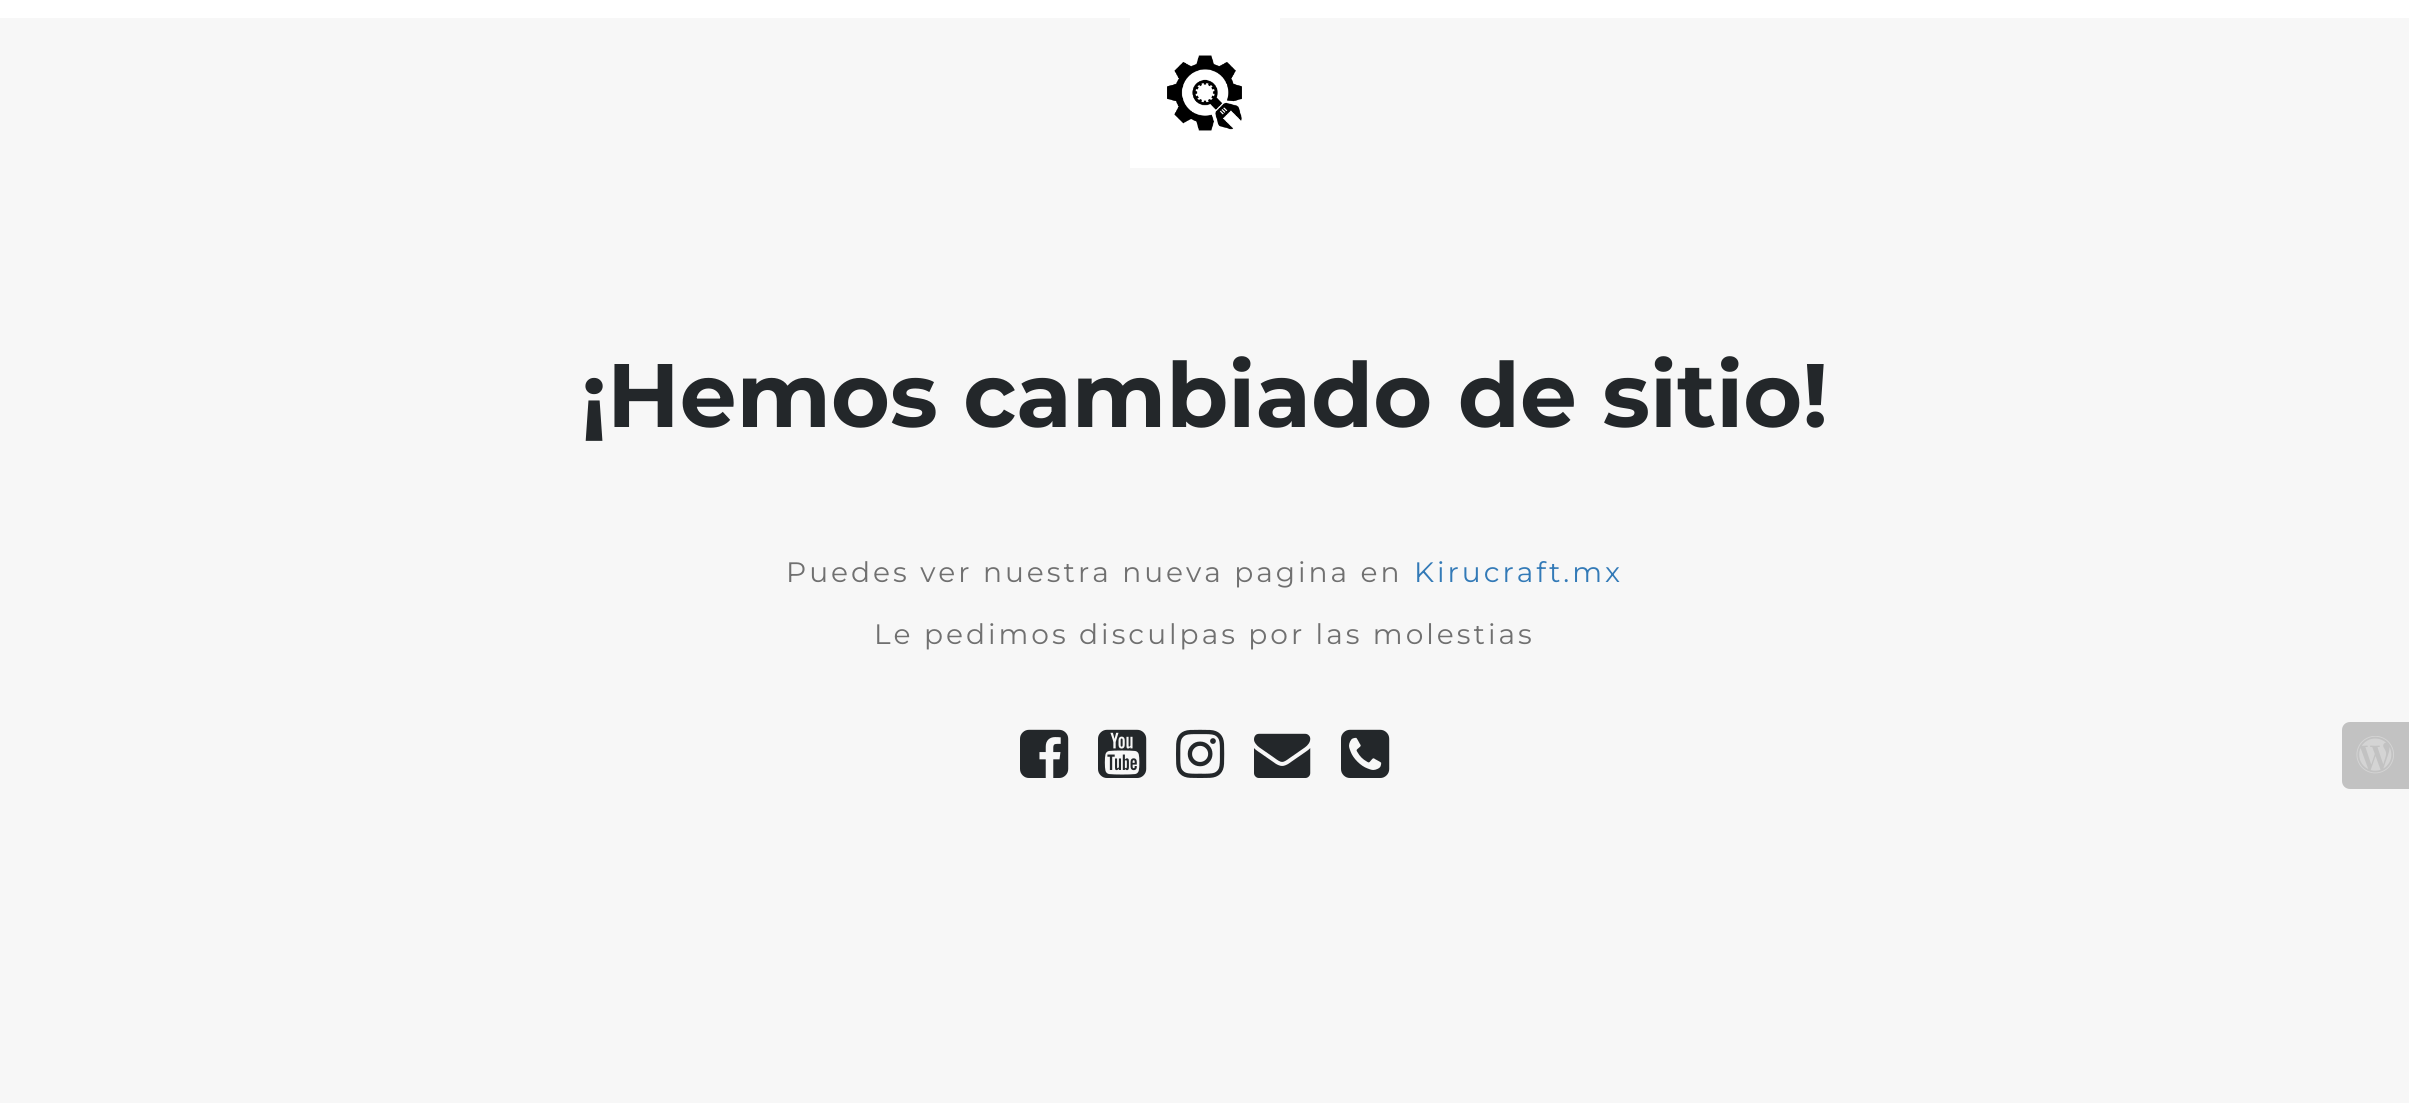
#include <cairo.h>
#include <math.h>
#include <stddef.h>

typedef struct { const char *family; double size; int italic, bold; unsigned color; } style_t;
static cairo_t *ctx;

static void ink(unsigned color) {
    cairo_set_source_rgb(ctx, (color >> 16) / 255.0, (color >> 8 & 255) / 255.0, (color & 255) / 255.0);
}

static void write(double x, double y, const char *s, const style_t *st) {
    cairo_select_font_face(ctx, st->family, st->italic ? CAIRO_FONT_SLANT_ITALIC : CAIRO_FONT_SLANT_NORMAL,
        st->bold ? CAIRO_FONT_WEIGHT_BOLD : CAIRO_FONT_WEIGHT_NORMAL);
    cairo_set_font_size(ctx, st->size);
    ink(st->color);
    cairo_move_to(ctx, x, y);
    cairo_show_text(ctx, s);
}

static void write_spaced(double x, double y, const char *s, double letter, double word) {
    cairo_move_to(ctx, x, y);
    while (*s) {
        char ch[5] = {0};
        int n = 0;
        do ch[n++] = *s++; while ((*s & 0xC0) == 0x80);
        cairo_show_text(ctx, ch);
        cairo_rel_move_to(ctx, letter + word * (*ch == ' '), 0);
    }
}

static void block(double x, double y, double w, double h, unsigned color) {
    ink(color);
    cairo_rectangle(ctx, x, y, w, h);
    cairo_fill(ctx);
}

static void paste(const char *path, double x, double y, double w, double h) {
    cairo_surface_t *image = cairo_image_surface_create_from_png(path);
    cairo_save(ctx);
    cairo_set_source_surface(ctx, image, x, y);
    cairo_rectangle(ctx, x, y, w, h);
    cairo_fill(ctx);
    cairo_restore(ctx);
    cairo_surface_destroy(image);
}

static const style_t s1 = {"Montserrat Thin", 90, 0, 0, 0x23272a};

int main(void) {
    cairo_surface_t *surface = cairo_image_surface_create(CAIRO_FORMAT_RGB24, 2409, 1103);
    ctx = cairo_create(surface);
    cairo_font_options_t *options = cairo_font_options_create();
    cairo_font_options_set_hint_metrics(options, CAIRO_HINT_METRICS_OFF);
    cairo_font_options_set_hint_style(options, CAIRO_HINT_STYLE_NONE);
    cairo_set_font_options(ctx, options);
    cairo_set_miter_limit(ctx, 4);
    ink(0xf7f7f7);
    cairo_paint(ctx);
    block(0, 0, 2409, 18, 0xffffff);
    block(1130, 18, 150, 150, 0xffffff);
    paste("pic1.png", 1167, 55, 75, 76);
    write(581, 427, "¡Hemos cambiado de sitio!", &s1);
    cairo_select_font_face(ctx, "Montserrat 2 Thin", CAIRO_FONT_SLANT_NORMAL, CAIRO_FONT_WEIGHT_NORMAL);
    cairo_set_font_size(ctx, 28.1);
    ink(0x707070);
    write_spaced(786, 582, "Puedes ver nuestra nueva pagina en", 3, 0);
    ink(0x337ab7);
    write_spaced(1414, 582, "Kirucraft.mx", 3, 0);
    ink(0x707070);
    write_spaced(874, 644, "Le pedimos disculpas por las molestias", 3, 0);
    paste("pic2.png", 1020, 729, 49, 49);
    paste("pic3.png", 1098, 729, 49, 49);
    paste("pic4.png", 1176, 729, 49, 49);
    paste("pic5.png", 1254, 733, 57, 45);
    paste("pic6.png", 1341, 729, 49, 49);
    ink(0xc2c2c2);
    cairo_new_path(ctx);
    cairo_move_to(ctx, 2350, 722);
    cairo_line_to(ctx, 2409, 722);
    cairo_line_to(ctx, 2409, 789);
    cairo_line_to(ctx, 2350, 789);
    cairo_curve_to(ctx, 2345.5, 789, 2342, 785.5, 2342, 781);
    cairo_line_to(ctx, 2342, 730);
    cairo_curve_to(ctx, 2342, 725.5, 2345.5, 722, 2350, 722);
    cairo_close_path(ctx);
    cairo_fill(ctx);
    paste("pic7.png", 2356, 736, 38, 38);
    cairo_surface_write_to_png(surface, "screenshot.png");
    cairo_font_options_destroy(options);
    cairo_destroy(ctx);
    cairo_surface_destroy(surface);
    return 0;
}
